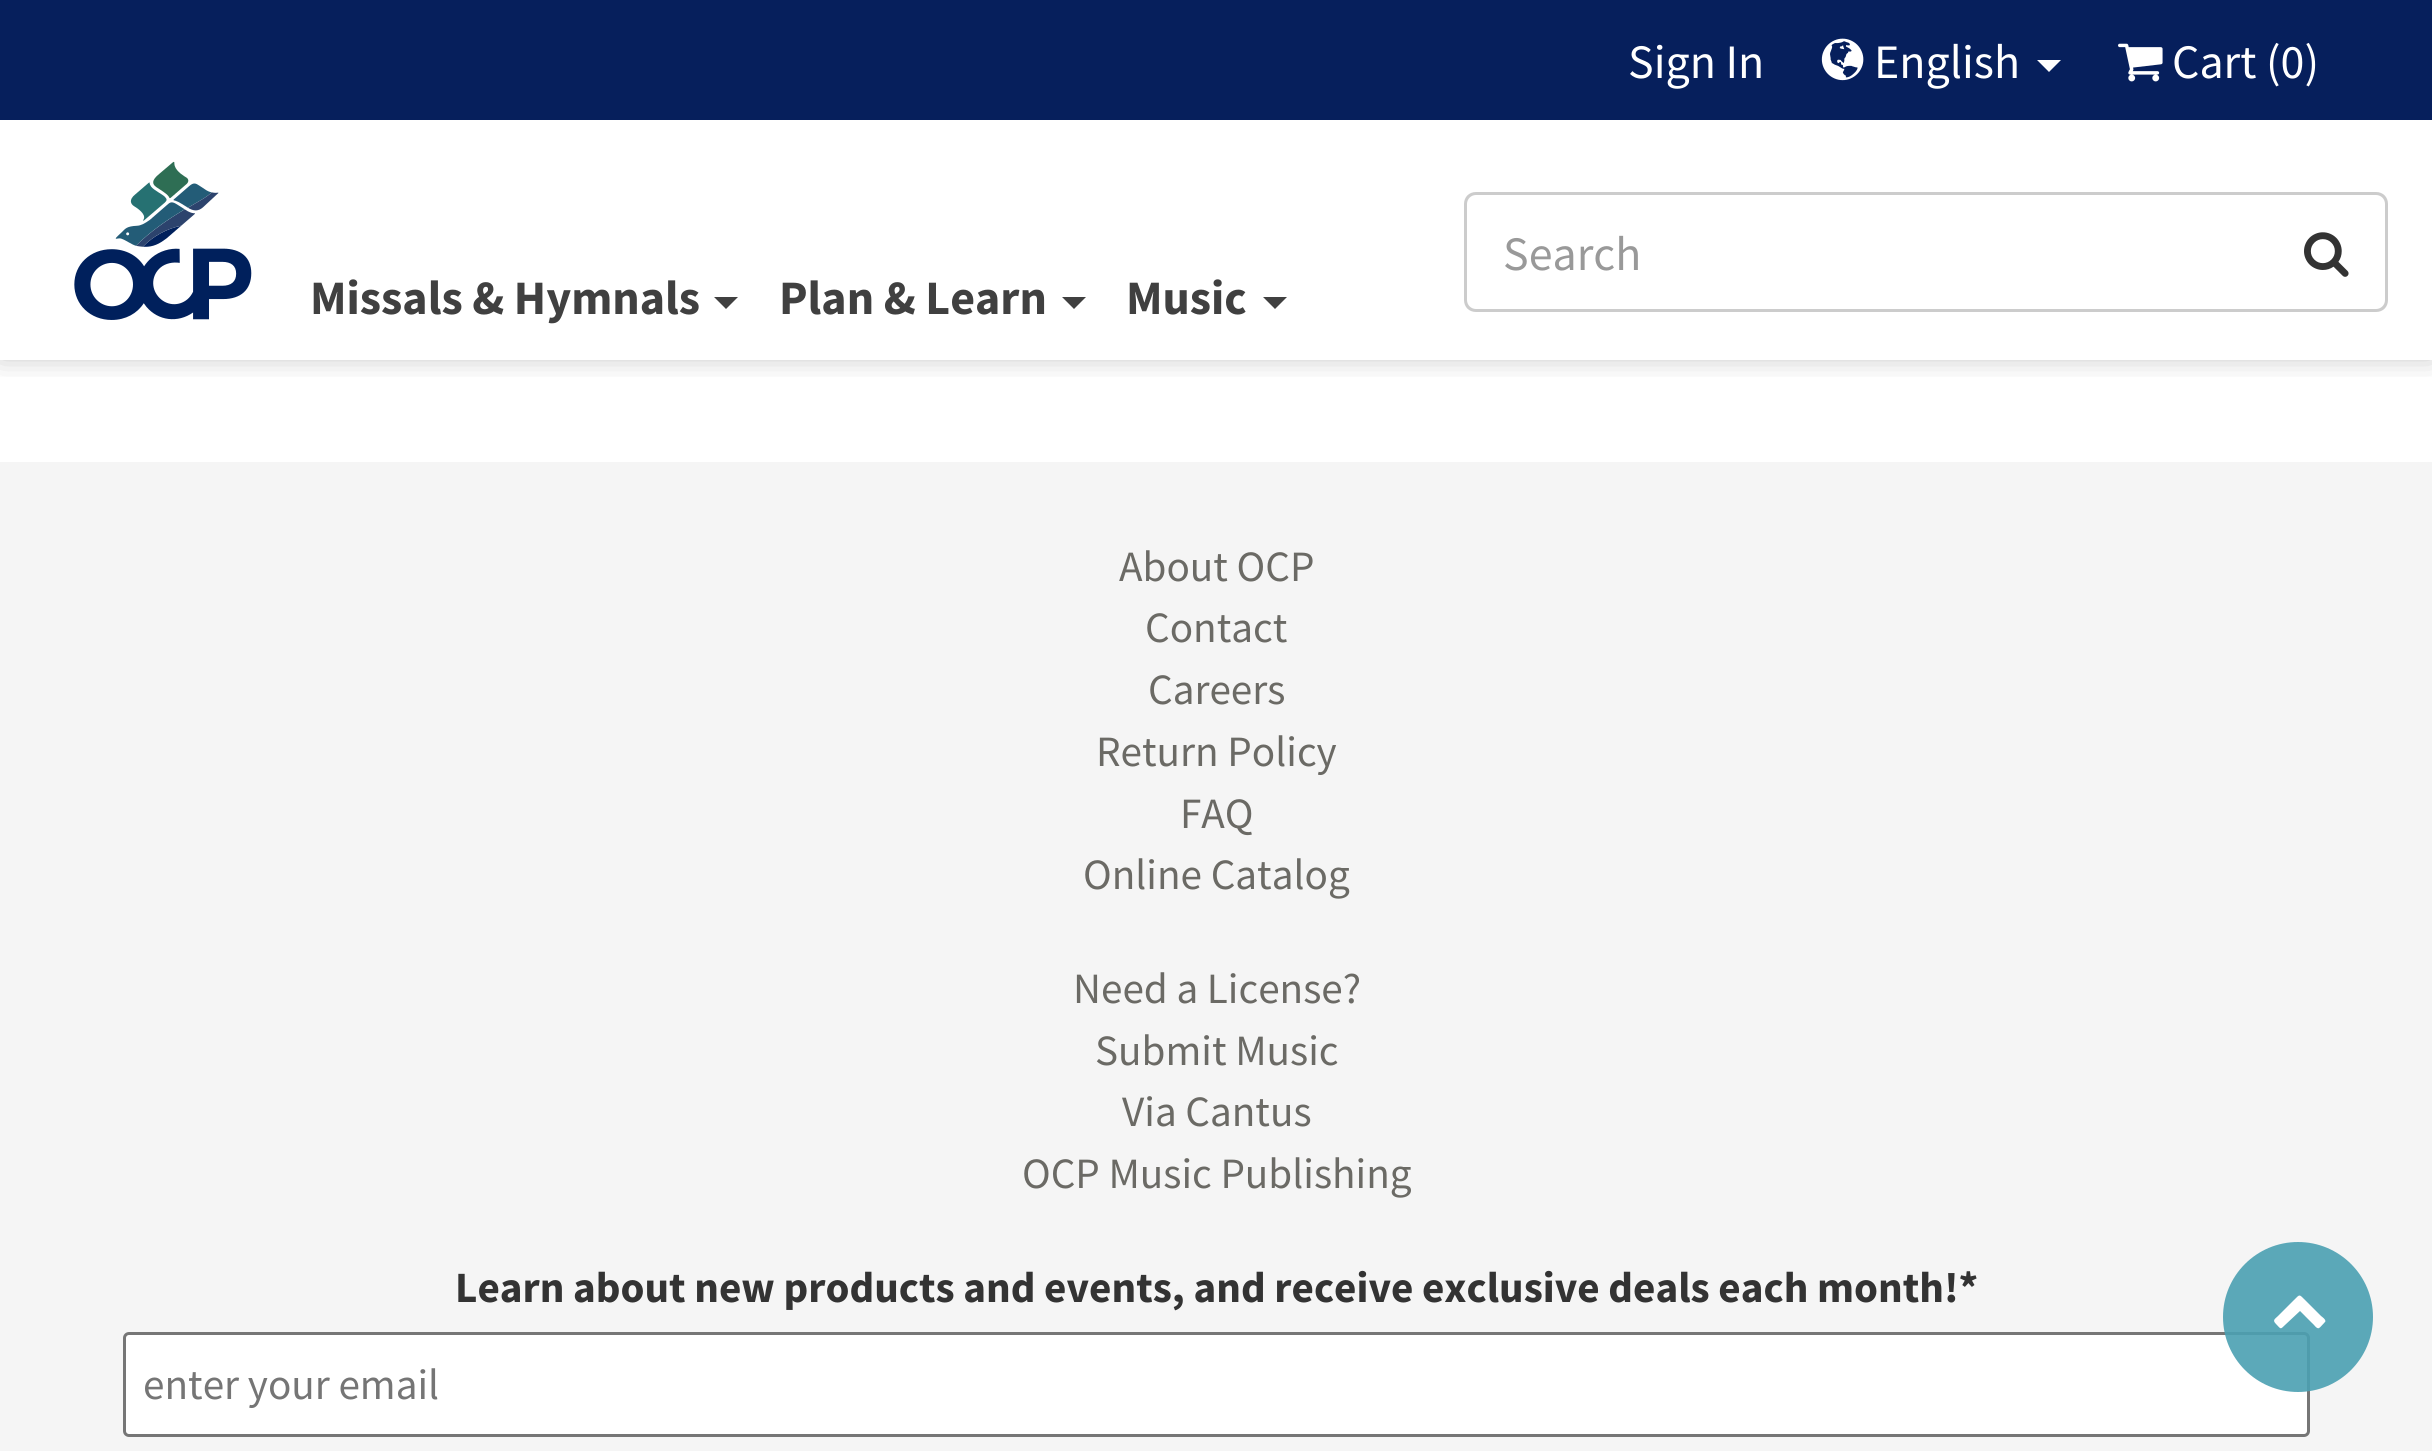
#include <cairo.h>
#include <math.h>
#include <stddef.h>

typedef struct { const char *family; double size; int italic, bold; unsigned color; } style_t;
static cairo_t *ctx;

static void ink(unsigned color) {
    cairo_set_source_rgb(ctx, (color >> 16) / 255.0, (color >> 8 & 255) / 255.0, (color & 255) / 255.0);
}

static void write(double x, double y, const char *s, const style_t *st) {
    cairo_select_font_face(ctx, st->family, st->italic ? CAIRO_FONT_SLANT_ITALIC : CAIRO_FONT_SLANT_NORMAL,
        st->bold ? CAIRO_FONT_WEIGHT_BOLD : CAIRO_FONT_WEIGHT_NORMAL);
    cairo_set_font_size(ctx, st->size);
    ink(st->color);
    cairo_move_to(ctx, x, y);
    cairo_show_text(ctx, s);
}

static void block(double x, double y, double w, double h, unsigned color) {
    ink(color);
    cairo_rectangle(ctx, x, y, w, h);
    cairo_fill(ctx);
}

static void round_path(double x, double y, double w, double h, double r) {
    cairo_new_sub_path(ctx);
    cairo_arc(ctx, x + w - r, y + h - r, r, 0, M_PI / 2);
    cairo_arc(ctx, x + r, y + h - r, r, M_PI / 2, M_PI);
    cairo_arc(ctx, x + r, y + r, r, M_PI, 1.5 * M_PI);
    cairo_arc(ctx, x + w - r, y + r, r, 1.5 * M_PI, 2 * M_PI);
    cairo_close_path(ctx);
}

static void blur_box(double x, double y, double w, double h, double r, double blur, double alpha) {
    cairo_push_group_with_content(ctx, CAIRO_CONTENT_ALPHA);
    cairo_set_operator(ctx, CAIRO_OPERATOR_SOURCE);
    for (int i = 15; i >= -15 && fmin(w, h) + blur * i / 3 > 0; i -= 2) {
        double e = blur * i / 6;
        cairo_set_source_rgba(ctx, 0, 0, 0, alpha * erfc((i - 1) / 8.5) / 2);
        round_path(x - e, y - e, w + 2 * e, h + 2 * e, fmax(0, fmin(r + e + blur * .6, fmin(w, h) / 2 + e)));
        cairo_fill(ctx);
    }
    cairo_pattern_t *soft = cairo_pop_group(ctx);
    cairo_mask(ctx, soft);
    cairo_pattern_destroy(soft);
}

static void paste(const char *path, double x, double y, double w, double h) {
    cairo_surface_t *image = cairo_image_surface_create_from_png(path);
    cairo_save(ctx);
    cairo_set_source_surface(ctx, image, x, y);
    cairo_rectangle(ctx, x, y, w, h);
    cairo_fill(ctx);
    cairo_restore(ctx);
    cairo_surface_destroy(image);
}

static const style_t s1 = {"Source Sans Pro", 48, 0, 0, 0xffffff};
static const style_t s2 = {"Source Sans Pro", 48, 0, 0, 0x999999};
static const style_t s3 = {"Source Sans Pro", 48, 0, 1, 0x404040};
static const style_t s4 = {"Source Sans Pro", 43.2, 0, 0, 0x6b6a65};
static const style_t s5 = {"Source Sans Pro", 43.2, 0, 1, 0x333333};
static const style_t s6 = {"Source Sans Pro", 43.2, 0, 0, 0x757575};

int main(void) {
    cairo_surface_t *surface = cairo_image_surface_create(CAIRO_FORMAT_RGB24, 2432, 1451);
    ctx = cairo_create(surface);
    cairo_font_options_t *options = cairo_font_options_create();
    cairo_font_options_set_hint_metrics(options, CAIRO_HINT_METRICS_OFF);
    cairo_font_options_set_hint_style(options, CAIRO_HINT_STYLE_NONE);
    cairo_set_font_options(ctx, options);
    cairo_set_miter_limit(ctx, 4);
    ink(0xffffff);
    cairo_paint(ctx);
    cairo_save(ctx);
    cairo_rectangle(ctx, 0, 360, 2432, 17);
    cairo_clip(ctx);
    ink(0x000000);
    blur_box(0, 114, 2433, 240, 0, 15, 0.3);
    cairo_restore(ctx);
    block(0, 0, 2432, 120, 0x061f5c);
    write(1628, 78, "Sign In", &s1);
    paste("pic1.png", 1821, 38, 43, 43);
    write(1874, 78, "English", &s1);
    cairo_new_path(ctx);
    cairo_move_to(ctx, 2037, 60);
    cairo_line_to(ctx, 2061, 60);
    cairo_line_to(ctx, 2049, 72);
    cairo_close_path(ctx);
    cairo_fill(ctx);
    paste("pic2.png", 2118, 43, 45, 39);
    write(2172, 78, "Cart (0)", &s1);
    ink(0xcccccc);
    cairo_set_fill_rule(ctx, CAIRO_FILL_RULE_EVEN_ODD);
    cairo_new_path(ctx);
    cairo_move_to(ctx, 1476, 192);
    cairo_line_to(ctx, 2271, 192);
    cairo_line_to(ctx, 2271, 312);
    cairo_line_to(ctx, 1476, 312);
    cairo_curve_to(ctx, 1469, 312, 1464, 307, 1464, 300);
    cairo_line_to(ctx, 1464, 204);
    cairo_curve_to(ctx, 1464, 197, 1469, 192, 1476, 192);
    cairo_close_path(ctx);
    cairo_move_to(ctx, 1476, 195);
    cairo_line_to(ctx, 2271, 195);
    cairo_line_to(ctx, 2271, 309);
    cairo_line_to(ctx, 1476, 309);
    cairo_curve_to(ctx, 1471, 309, 1467, 305, 1467, 300);
    cairo_line_to(ctx, 1467, 204);
    cairo_curve_to(ctx, 1467, 199, 1471, 195, 1476, 195);
    cairo_close_path(ctx);
    cairo_fill(ctx);
    write(1503, 270, "Search", &s2);
    ink(0xcccccc);
    cairo_new_path(ctx);
    cairo_move_to(ctx, 2268, 192);
    cairo_line_to(ctx, 2376, 192);
    cairo_curve_to(ctx, 2383, 192, 2388, 197, 2388, 204);
    cairo_line_to(ctx, 2388, 300);
    cairo_curve_to(ctx, 2388, 307, 2383, 312, 2376, 312);
    cairo_line_to(ctx, 2268, 312);
    cairo_close_path(ctx);
    cairo_move_to(ctx, 2268, 195);
    cairo_line_to(ctx, 2376, 195);
    cairo_curve_to(ctx, 2381, 195, 2385, 199, 2385, 204);
    cairo_line_to(ctx, 2385, 300);
    cairo_curve_to(ctx, 2385, 305, 2381, 309, 2376, 309);
    cairo_line_to(ctx, 2268, 309);
    cairo_close_path(ctx);
    cairo_fill(ctx);
    paste("pic3.png", 2304, 232, 45, 45);
    paste("pic4.png", 74, 161, 178, 159);
    write(310, 314, "Missals & Hymnals", &s3);
    cairo_set_fill_rule(ctx, CAIRO_FILL_RULE_WINDING);
    cairo_new_path(ctx);
    cairo_move_to(ctx, 714, 297);
    cairo_line_to(ctx, 738, 297);
    cairo_line_to(ctx, 726, 309);
    cairo_close_path(ctx);
    cairo_fill(ctx);
    write(779, 314, "Plan & Learn", &s3);
    cairo_new_path(ctx);
    cairo_move_to(ctx, 1062, 297);
    cairo_line_to(ctx, 1086, 297);
    cairo_line_to(ctx, 1074, 309);
    cairo_close_path(ctx);
    cairo_fill(ctx);
    write(1126, 314, "Music", &s3);
    cairo_new_path(ctx);
    cairo_move_to(ctx, 1263, 297);
    cairo_line_to(ctx, 1287, 297);
    cairo_line_to(ctx, 1275, 309);
    cairo_close_path(ctx);
    cairo_fill(ctx);
    block(0, 462, 2432, 989, 0xf5f5f5);
    ink(0xffffff);
    round_path(124.5, 1333.5, 2184, 102, 4.5);
    cairo_fill_preserve(ctx);
    ink(0x767676);
    cairo_set_line_width(ctx, 3);
    cairo_stroke(ctx);
    cairo_set_source_rgba(ctx, 0.294, 0.627, 0.698, 0.9);
    cairo_arc(ctx, 2298, 1317, 75, 0, 2 * M_PI);
    cairo_fill(ctx);
    ink(0xffffff);
    cairo_new_path(ctx);
    cairo_move_to(ctx, 2325, 1322);
    cairo_curve_to(ctx, 2319, 1328, 2319, 1331, 2314, 1325);
    cairo_line_to(ctx, 2300, 1311);
    cairo_line_to(ctx, 2285, 1325);
    cairo_curve_to(ctx, 2280, 1330, 2281, 1329, 2276, 1324);
    cairo_curve_to(ctx, 2272, 1320, 2275, 1319, 2278, 1316);
    cairo_line_to(ctx, 2294, 1300);
    cairo_curve_to(ctx, 2300, 1294, 2299, 1294, 2305, 1300);
    cairo_line_to(ctx, 2321, 1316);
    cairo_curve_to(ctx, 2321, 1316, 2327, 1320, 2325, 1322);
    cairo_close_path(ctx);
    cairo_fill(ctx);
    write(1119, 581, "About OCP", &s4);
    write(1145, 642, "Contact", &s4);
    write(1148, 704, "Careers", &s4);
    write(1096, 766, "Return Policy", &s4);
    write(1180, 828, "FAQ", &s4);
    write(1083, 889, "Online Catalog", &s4);
    write(1073, 1003, "Need a License?", &s4);
    write(1095, 1065, "Submit Music", &s4);
    write(1122, 1126, "Via Cantus", &s4);
    write(1022, 1188, "OCP Music Publishing", &s4);
    write(455, 1302, "Learn about new products and events, and receive exclusive deals each month!*", &s5);
    write(143, 1399, "enter your email", &s6);
    cairo_surface_write_to_png(surface, "screenshot.png");
    cairo_font_options_destroy(options);
    cairo_destroy(ctx);
    cairo_surface_destroy(surface);
    return 0;
}
